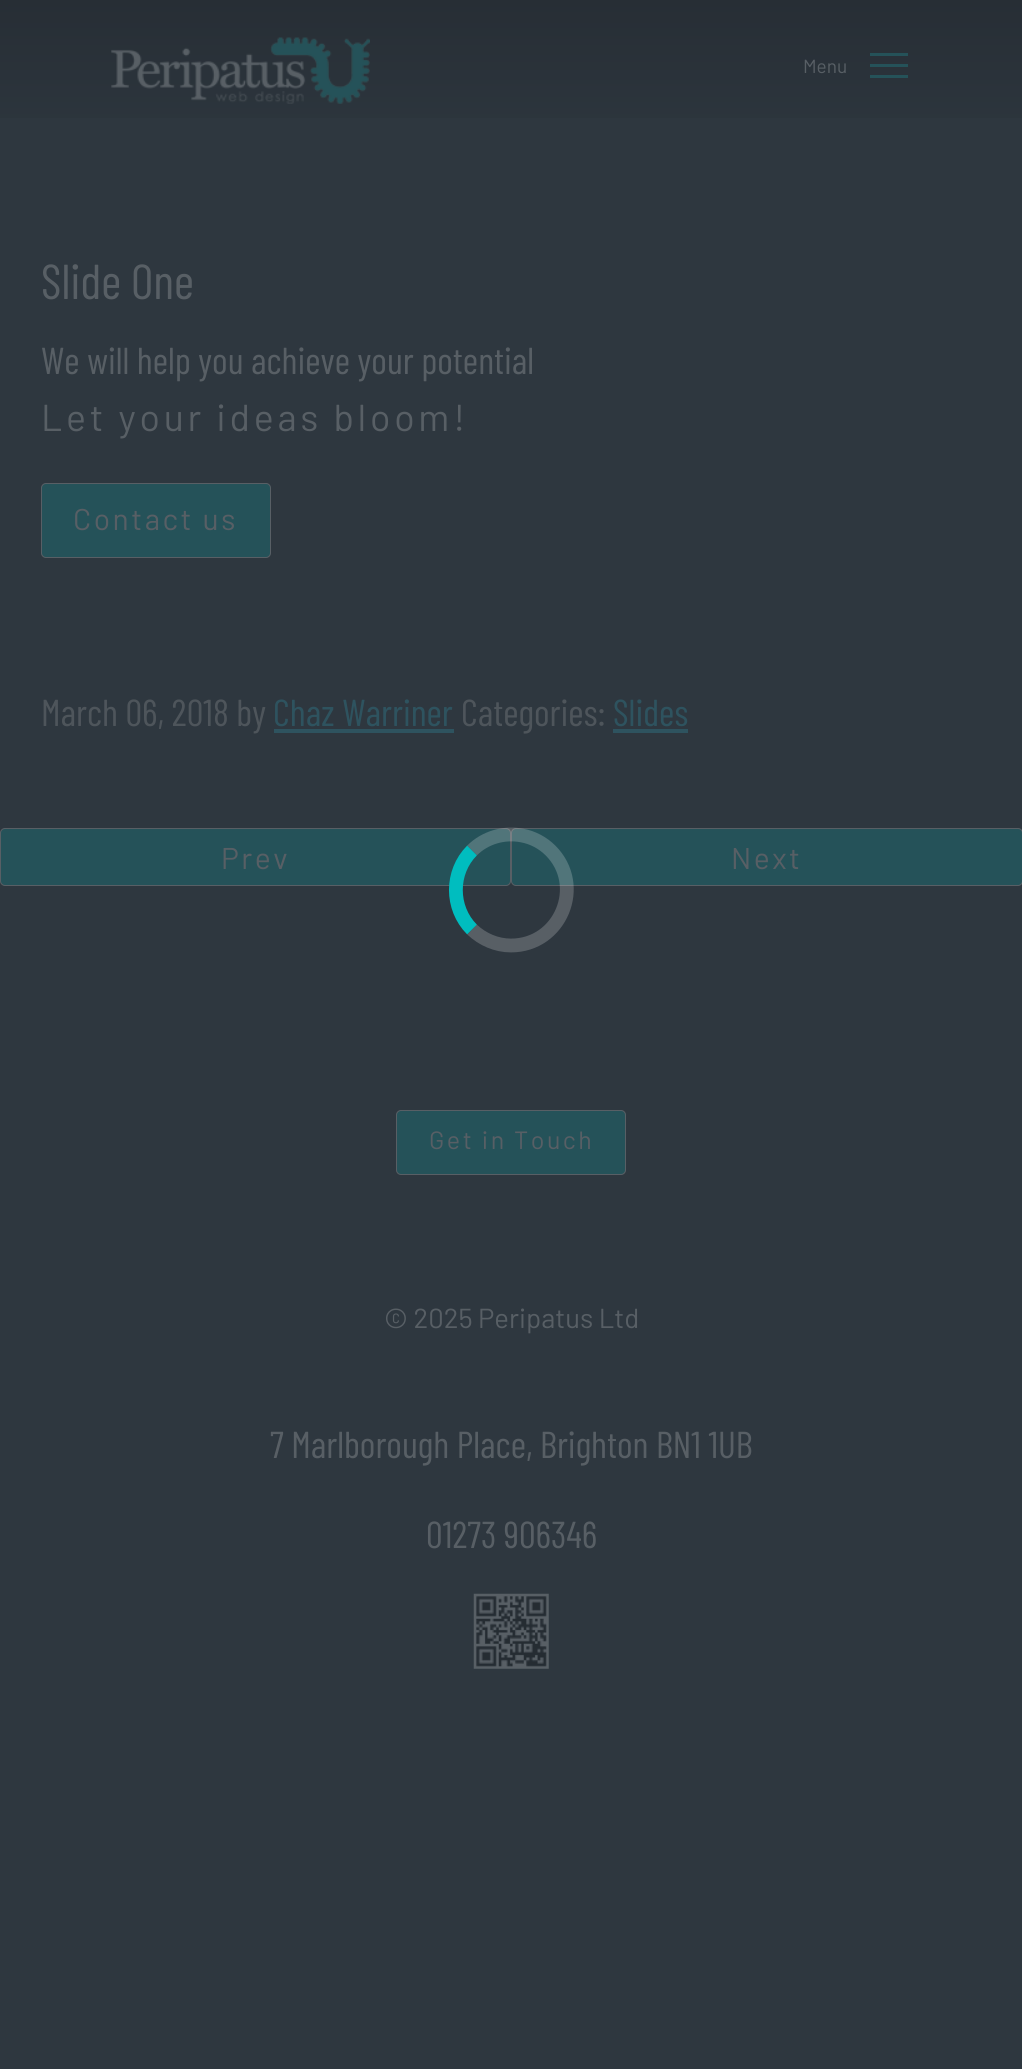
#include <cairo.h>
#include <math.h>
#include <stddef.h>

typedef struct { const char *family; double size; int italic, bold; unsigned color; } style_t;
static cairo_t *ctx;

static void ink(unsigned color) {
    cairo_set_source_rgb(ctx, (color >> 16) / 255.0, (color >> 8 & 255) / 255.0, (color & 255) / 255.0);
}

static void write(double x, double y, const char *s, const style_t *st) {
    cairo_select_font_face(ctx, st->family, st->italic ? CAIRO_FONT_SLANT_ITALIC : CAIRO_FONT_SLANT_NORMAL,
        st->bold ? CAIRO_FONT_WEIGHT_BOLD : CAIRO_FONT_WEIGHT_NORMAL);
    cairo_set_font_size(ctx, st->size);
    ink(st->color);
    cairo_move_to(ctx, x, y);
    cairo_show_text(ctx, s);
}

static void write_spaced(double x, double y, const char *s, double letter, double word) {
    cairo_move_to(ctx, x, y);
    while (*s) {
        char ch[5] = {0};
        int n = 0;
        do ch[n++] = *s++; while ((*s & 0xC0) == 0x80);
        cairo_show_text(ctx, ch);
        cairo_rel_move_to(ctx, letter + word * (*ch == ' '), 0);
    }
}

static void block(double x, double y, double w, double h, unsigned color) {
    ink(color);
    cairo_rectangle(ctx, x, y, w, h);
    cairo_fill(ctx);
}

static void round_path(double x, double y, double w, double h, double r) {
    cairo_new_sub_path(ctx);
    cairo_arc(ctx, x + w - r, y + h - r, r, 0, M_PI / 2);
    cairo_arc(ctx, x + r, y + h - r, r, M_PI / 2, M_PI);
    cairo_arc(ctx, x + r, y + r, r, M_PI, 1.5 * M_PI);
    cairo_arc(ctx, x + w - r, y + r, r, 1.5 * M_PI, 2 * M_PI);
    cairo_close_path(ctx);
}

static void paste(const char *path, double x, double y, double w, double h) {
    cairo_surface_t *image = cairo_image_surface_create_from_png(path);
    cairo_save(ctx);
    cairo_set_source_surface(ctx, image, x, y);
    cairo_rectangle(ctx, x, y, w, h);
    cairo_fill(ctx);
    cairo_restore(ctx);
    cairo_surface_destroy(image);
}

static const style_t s1 = {"Barlow", 19, 0, 0, 0x585f65};
static const style_t s2 = {"Barlow Condensed", 49, 0, 0, 0x585f65};
static const style_t s3 = {"Barlow Condensed", 37.5, 0, 0, 0x585f65};
static const style_t s4 = {"Barlow Condensed", 37.5, 0, 0, 0x4e555b};
static const style_t s5 = {"Barlow Condensed", 37.5, 0, 0, 0x2e535f};
static const style_t s6 = {"Barlow", 27.5, 0, 0, 0x585f65};

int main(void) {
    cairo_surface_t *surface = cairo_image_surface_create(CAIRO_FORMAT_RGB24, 1022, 2069);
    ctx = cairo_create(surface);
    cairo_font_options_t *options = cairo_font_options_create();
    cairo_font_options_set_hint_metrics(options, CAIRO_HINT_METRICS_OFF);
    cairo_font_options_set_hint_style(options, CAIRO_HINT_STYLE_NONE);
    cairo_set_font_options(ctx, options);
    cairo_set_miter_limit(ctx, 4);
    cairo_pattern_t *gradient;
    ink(0x2e373f);
    cairo_paint(ctx);
    gradient = cairo_pattern_create_linear(511, 0, 511, 141);
    cairo_pattern_add_color_stop_rgba(gradient, 0, 0.153, 0.18, 0.208, 1);
    cairo_pattern_add_color_stop_rgba(gradient, 1, 0.176, 0.212, 0.243, 1);
    cairo_set_source(ctx, gradient);
    cairo_pattern_destroy(gradient);
    cairo_rectangle(ctx, 0, 0, 1022, 118);
    cairo_fill(ctx);
    paste("pic1.png", 111, 37, 259, 67);
    write(803, 73, "Menu", &s1);
    block(870, 53, 38, 3, 0x255259);
    block(870, 64, 38, 3, 0x255259);
    block(870, 75, 38, 3, 0x255259);
    write(41, 299, "Slide One", &s2);
    write(41, 374, "We will help you achieve your potential", &s3);
    cairo_select_font_face(ctx, "Barlow", CAIRO_FONT_SLANT_NORMAL, CAIRO_FONT_WEIGHT_NORMAL);
    write_spaced(41, 431, "Let your ideas bloom!", 3.75, 0);
    ink(0x255259);
    round_path(41.5, 483.5, 229, 74, 4.5);
    cairo_fill_preserve(ctx);
    ink(0x585f65);
    cairo_set_line_width(ctx, 1);
    cairo_stroke(ctx);
    cairo_set_font_size(ctx, 30);
    write_spaced(73, 530, "Contact us", 2.5, 0);
    write(41, 726, "March 06, 2018 by", &s4);
    write(273, 726, "Chaz Warriner", &s5);
    block(274, 729, 180, 4, 0x2e535f);
    write(461, 726, "Categories:", &s4);
    write(613, 726, "Slides", &s5);
    block(613, 729, 75, 4, 0x2e535f);
    ink(0x255259);
    round_path(0.5, 828.5, 510, 57, 4.5);
    cairo_fill_preserve(ctx);
    ink(0x585f65);
    cairo_stroke(ctx);
    cairo_select_font_face(ctx, "Barlow", CAIRO_FONT_SLANT_NORMAL, CAIRO_FONT_WEIGHT_NORMAL);
    cairo_set_font_size(ctx, 30);
    write_spaced(221, 869, "Prev", 2.5, 0);
    ink(0x255259);
    round_path(511.5, 828.5, 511, 57, 4.5);
    cairo_fill_preserve(ctx);
    ink(0x585f65);
    cairo_stroke(ctx);
    write_spaced(731, 869, "Next", 2.5, 0);
    cairo_new_path(ctx);
    cairo_move_to(ctx, 472, 850.5);
    cairo_curve_to(ctx, 485, 837.5, 504, 832, 522, 835.5);
    cairo_curve_to(ctx, 533, 837.5, 543, 843, 550.5, 850.5);
    cairo_curve_to(ctx, 585.5, 885.5, 560.5, 945.5, 511, 945.5);
    cairo_curve_to(ctx, 496.5, 945.5, 482.5, 939.5, 472, 929.5);
    cairo_set_source_rgba(ctx, 1, 1, 1, 0.2);
    cairo_set_line_width(ctx, 13.8);
    cairo_stroke(ctx);
    cairo_new_path(ctx);
    cairo_move_to(ctx, 472, 929.5);
    cairo_curve_to(ctx, 450.5, 908, 450.5, 872, 472, 850.5);
    ink(0x00bdbf);
    cairo_stroke(ctx);
    ink(0x255259);
    round_path(396.5, 1110.5, 229, 64, 4.5);
    cairo_fill_preserve(ctx);
    ink(0x585f65);
    cairo_set_line_width(ctx, 1);
    cairo_stroke(ctx);
    cairo_set_font_size(ctx, 25);
    write_spaced(429, 1149, "Get in Touch", 2.5, 0);
    write(384, 1328, "© 2025 Peripatus Ltd", &s6);
    write(270, 1458, "7 Marlborough Place, Brighton BN1 1UB", &s3);
    write(426, 1548, "01273 906346", &s3);
    paste("pic2.png", 473, 1593, 76, 76);
    cairo_surface_write_to_png(surface, "screenshot.png");
    cairo_font_options_destroy(options);
    cairo_destroy(ctx);
    cairo_surface_destroy(surface);
    return 0;
}
